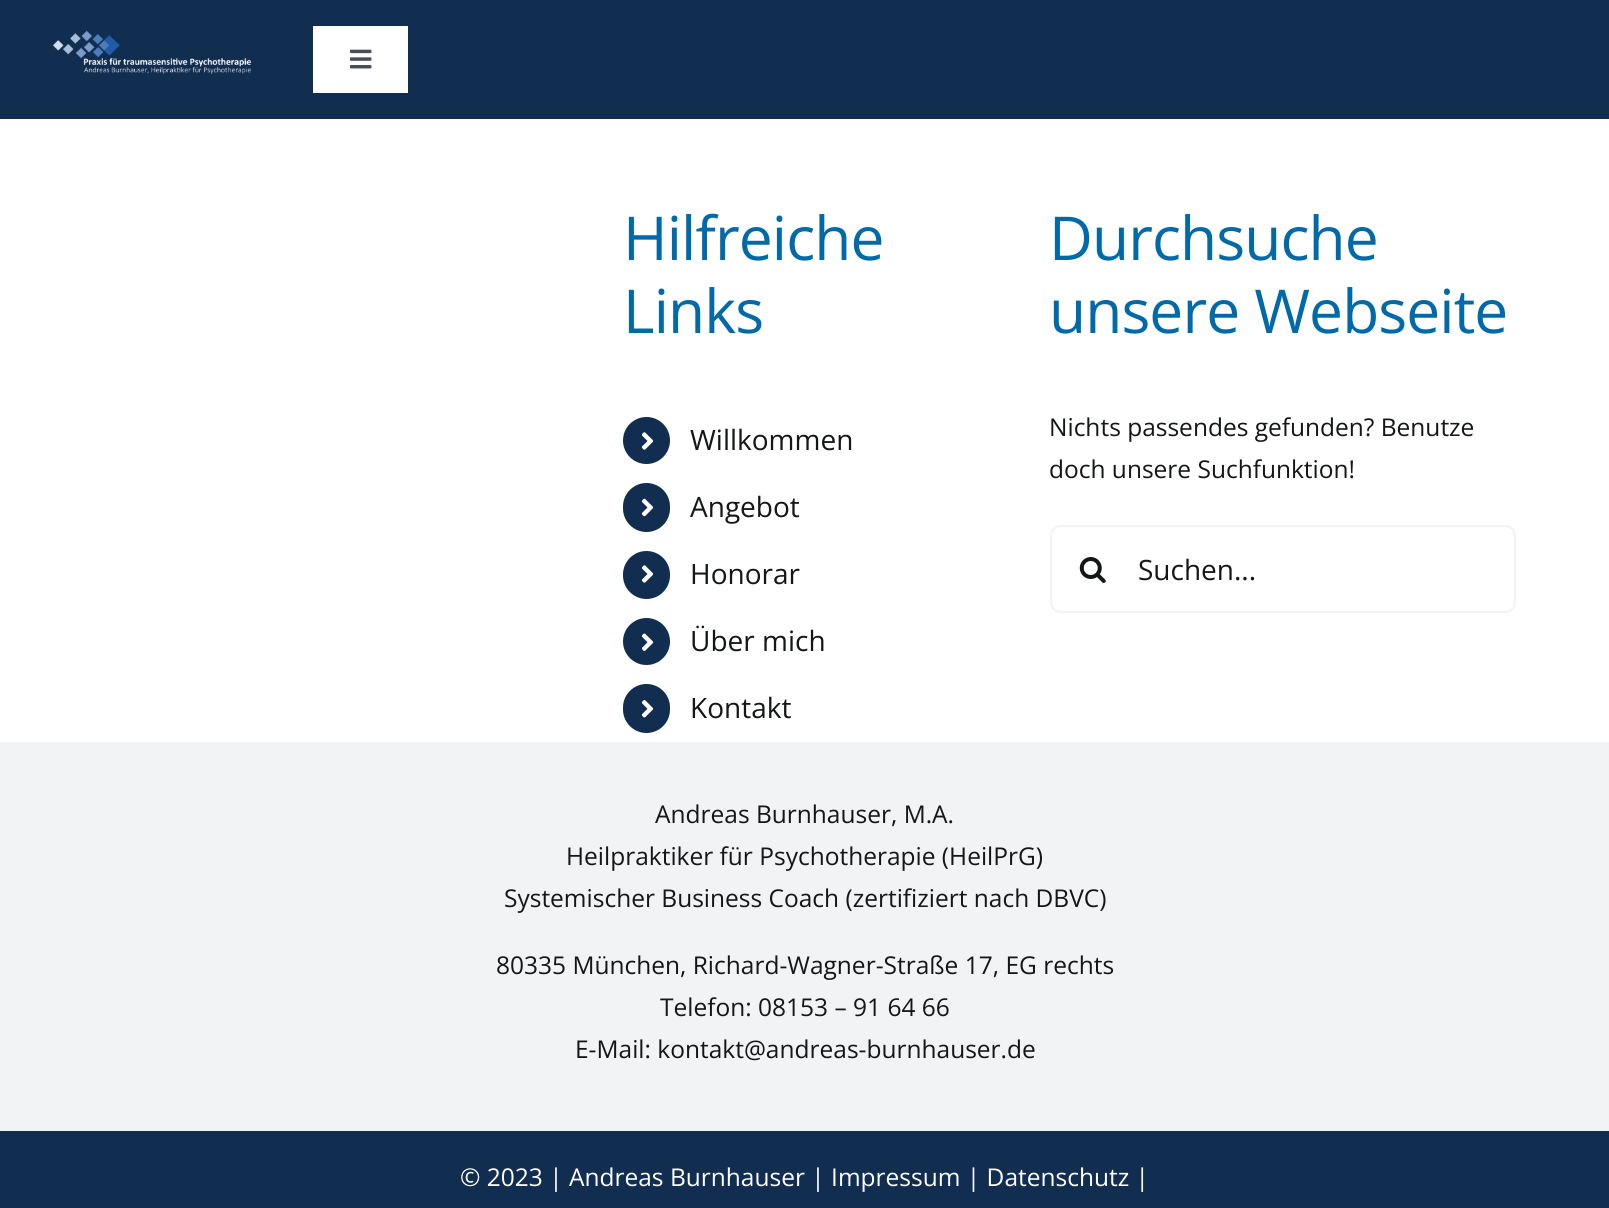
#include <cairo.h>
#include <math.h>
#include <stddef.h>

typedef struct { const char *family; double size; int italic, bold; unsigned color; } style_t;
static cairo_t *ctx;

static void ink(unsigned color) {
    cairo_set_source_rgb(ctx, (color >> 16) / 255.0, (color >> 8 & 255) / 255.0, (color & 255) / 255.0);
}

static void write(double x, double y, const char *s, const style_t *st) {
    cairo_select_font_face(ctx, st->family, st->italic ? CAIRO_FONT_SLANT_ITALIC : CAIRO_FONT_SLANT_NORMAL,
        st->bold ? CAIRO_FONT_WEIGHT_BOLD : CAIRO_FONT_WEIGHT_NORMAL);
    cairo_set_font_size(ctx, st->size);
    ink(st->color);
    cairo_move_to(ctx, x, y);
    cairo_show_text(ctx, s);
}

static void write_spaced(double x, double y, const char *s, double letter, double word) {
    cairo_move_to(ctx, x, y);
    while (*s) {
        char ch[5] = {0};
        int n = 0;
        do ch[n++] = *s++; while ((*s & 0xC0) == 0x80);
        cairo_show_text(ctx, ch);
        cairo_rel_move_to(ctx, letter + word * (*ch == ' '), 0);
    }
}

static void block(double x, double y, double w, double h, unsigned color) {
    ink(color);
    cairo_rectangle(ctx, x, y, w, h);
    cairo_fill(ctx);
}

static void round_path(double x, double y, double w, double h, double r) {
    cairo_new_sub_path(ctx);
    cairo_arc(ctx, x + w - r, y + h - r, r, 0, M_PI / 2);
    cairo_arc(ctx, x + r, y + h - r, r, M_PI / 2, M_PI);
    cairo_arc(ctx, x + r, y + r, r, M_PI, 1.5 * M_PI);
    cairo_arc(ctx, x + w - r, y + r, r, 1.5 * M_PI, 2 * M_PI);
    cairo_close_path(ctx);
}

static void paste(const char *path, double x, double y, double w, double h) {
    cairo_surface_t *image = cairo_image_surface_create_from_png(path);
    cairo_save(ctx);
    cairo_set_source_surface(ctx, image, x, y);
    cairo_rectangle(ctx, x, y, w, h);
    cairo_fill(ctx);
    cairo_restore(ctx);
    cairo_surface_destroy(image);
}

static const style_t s1 = {"Open Sans", 28, 0, 0, 0x141617};
static const style_t s2 = {"Open Sans", 24.5, 0, 0, 0x141617};
static const style_t s3 = {"Open Sans", 24.5, 0, 0, 0xffffff};

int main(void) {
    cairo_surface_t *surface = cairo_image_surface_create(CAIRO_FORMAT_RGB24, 1609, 1208);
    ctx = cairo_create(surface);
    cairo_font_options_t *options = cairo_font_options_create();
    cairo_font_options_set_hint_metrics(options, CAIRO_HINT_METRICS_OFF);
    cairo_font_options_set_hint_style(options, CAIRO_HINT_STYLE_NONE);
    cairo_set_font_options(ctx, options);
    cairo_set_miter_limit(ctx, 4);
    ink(0xffffff);
    cairo_paint(ctx);
    block(0, 0, 1609, 119, 0x112d50);
    paste("pic1.png", 52, 30, 199, 44);
    block(313, 26, 95, 67, 0xffffff);
    paste("pic2.png", 350, 49, 22, 20);
    cairo_select_font_face(ctx, "Open Sans", CAIRO_FONT_SLANT_NORMAL, CAIRO_FONT_WEIGHT_NORMAL);
    cairo_set_font_size(ctx, 60.5);
    ink(0x0069a9);
    write_spaced(623, 260, "Hilfreiche", -0.9, 0);
    write_spaced(623, 333, "Links", -0.9, 0);
    ink(0x112d50);
    cairo_new_path(ctx);
    cairo_arc(ctx, 646.5, 440.5, 23.5, 0, 2 * M_PI);
    cairo_fill(ctx);
    paste("pic3.png", 641, 432, 13, 18);
    write(690, 450, "Willkommen", &s1);
    ink(0x112d50);
    round_path(623, 483, 47, 49, 23.5);
    cairo_fill(ctx);
    paste("pic4.png", 641, 498, 13, 19);
    write(690, 517, "Angebot", &s1);
    ink(0x112d50);
    round_path(623, 551, 47, 48, 23.5);
    cairo_fill(ctx);
    paste("pic3.png", 641, 565, 13, 18);
    write(690, 584, "Honorar", &s1);
    ink(0x112d50);
    cairo_new_path(ctx);
    cairo_arc(ctx, 646.5, 641.5, 23.5, 0, 2 * M_PI);
    cairo_fill(ctx);
    paste("pic5.png", 641, 633, 13, 18);
    write(690, 651, "Über mich", &s1);
    ink(0x112d50);
    round_path(623, 684, 47, 49, 23.5);
    cairo_fill(ctx);
    paste("pic6.png", 641, 700, 13, 18);
    write(690, 718, "Kontakt", &s1);
    cairo_set_font_size(ctx, 60.5);
    ink(0x0069a9);
    write_spaced(1049, 260, "Durchsuche", -0.9, 0);
    write_spaced(1049, 333, "unsere Webseite", -0.9, 0);
    write(1049, 436, "Nichts passendes gefunden? Benutze", &s2);
    write(1049, 478, "doch unsere Suchfunktion!", &s2);
    round_path(1051, 526, 464, 86, 10);
    ink(0xf2f3f5);
    cairo_stroke(ctx);
    paste("pic7.png", 1079, 557, 27, 26);
    write(1138, 580, "Suchen...", &s1);
    block(0, 742, 1609, 389, 0xf2f3f5);
    write(655, 823, "Andreas Burnhauser, M.A.", &s2);
    write(566, 865, "Heilpraktiker für Psychotherapie (HeilPrG)", &s2);
    write(504, 907, "Systemischer Business Coach (zertifiziert nach DBVC)", &s2);
    write(496, 974, "80335 München, Richard-Wagner-Straße 17, EG rechts", &s2);
    write(660, 1016, "Telefon: 08153 – 91 64 66", &s2);
    write(575, 1058, "E-Mail: kontakt@andreas-burnhauser.de", &s2);
    block(0, 1131, 1609, 77, 0x112d50);
    write(460, 1186, "© 2023 | Andreas Burnhauser | Impressum | Datenschutz |", &s3);
    cairo_surface_write_to_png(surface, "screenshot.png");
    cairo_font_options_destroy(options);
    cairo_destroy(ctx);
    cairo_surface_destroy(surface);
    return 0;
}
